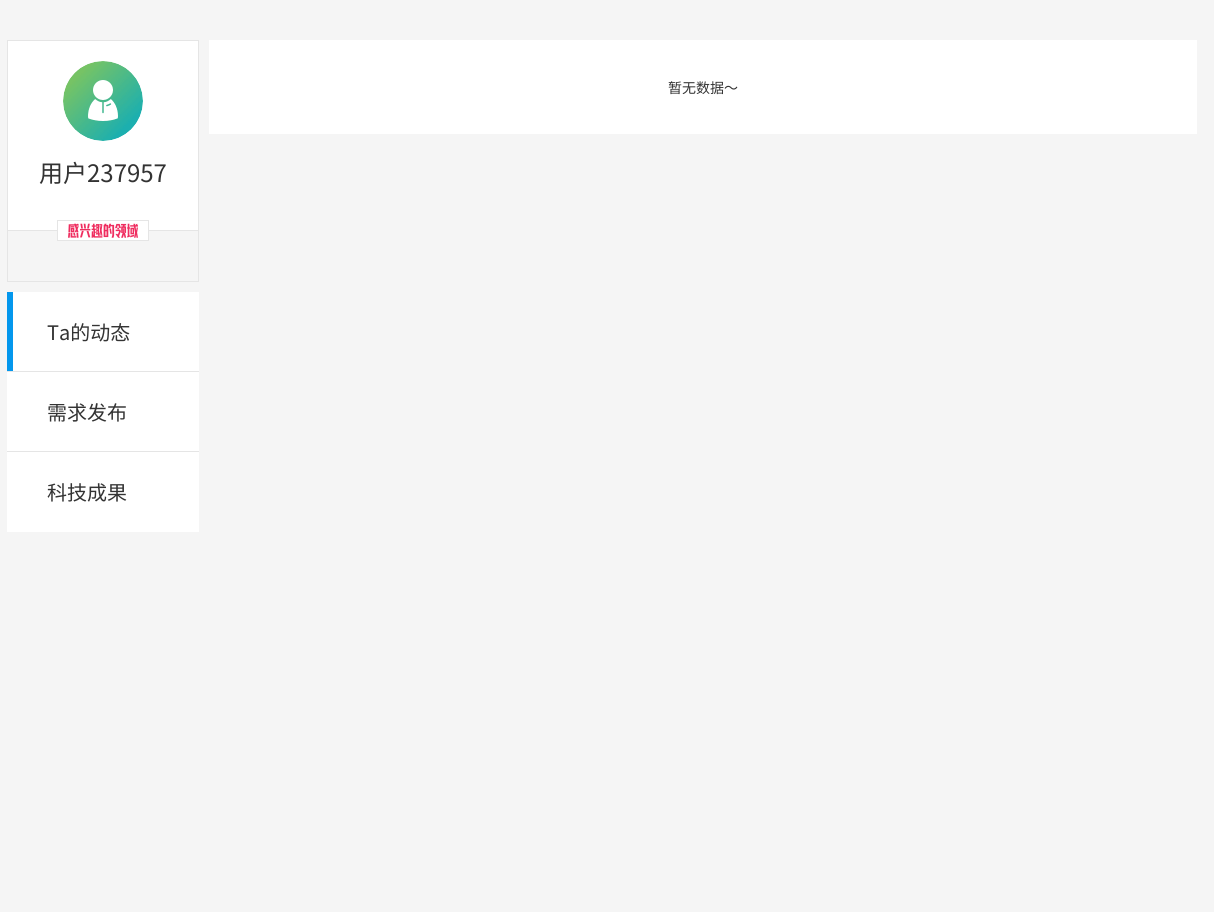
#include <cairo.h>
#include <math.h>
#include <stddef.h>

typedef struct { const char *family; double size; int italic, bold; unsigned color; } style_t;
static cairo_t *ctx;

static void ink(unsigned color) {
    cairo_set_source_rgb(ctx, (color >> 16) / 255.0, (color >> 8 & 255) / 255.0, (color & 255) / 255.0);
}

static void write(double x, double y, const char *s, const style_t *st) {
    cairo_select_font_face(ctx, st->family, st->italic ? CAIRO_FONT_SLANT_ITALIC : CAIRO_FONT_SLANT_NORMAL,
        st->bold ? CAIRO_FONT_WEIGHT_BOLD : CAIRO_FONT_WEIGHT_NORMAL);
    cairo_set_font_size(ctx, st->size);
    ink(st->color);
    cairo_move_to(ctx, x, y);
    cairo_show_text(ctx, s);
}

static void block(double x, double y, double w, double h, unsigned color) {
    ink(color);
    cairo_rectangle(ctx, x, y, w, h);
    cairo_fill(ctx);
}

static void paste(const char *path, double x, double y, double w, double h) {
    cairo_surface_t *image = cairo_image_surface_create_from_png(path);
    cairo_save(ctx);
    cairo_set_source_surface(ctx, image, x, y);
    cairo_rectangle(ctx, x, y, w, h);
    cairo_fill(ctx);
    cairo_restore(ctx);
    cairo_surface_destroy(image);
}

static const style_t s1 = {"Noto Sans CJK SC", 14, 0, 0, 0x333333};
static const style_t s2 = {"Noto Sans CJK SC", 24, 0, 0, 0x333333};
static const style_t s3 = {"Noto Sans CJK SC", 20, 0, 0, 0x333333};

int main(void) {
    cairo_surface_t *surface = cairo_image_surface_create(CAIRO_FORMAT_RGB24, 1214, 912);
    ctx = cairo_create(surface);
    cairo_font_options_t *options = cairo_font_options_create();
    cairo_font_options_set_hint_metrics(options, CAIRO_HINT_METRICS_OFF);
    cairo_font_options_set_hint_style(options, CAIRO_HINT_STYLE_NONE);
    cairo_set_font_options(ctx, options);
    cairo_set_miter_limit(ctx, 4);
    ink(0xf5f5f5);
    cairo_paint(ctx);
    block(209, 40, 988, 94, 0xffffff);
    write(668, 93, "暂无数据～", &s1);
    block(8, 41, 190, 189, 0xffffff);
    cairo_rectangle(ctx, 7.5, 40.5, 191, 241);
    ink(0xe5e5e5);
    cairo_set_line_width(ctx, 1);
    cairo_stroke(ctx);
    block(8, 230, 190, 1, 0xe5e5e5);
    paste("pic1.png", 63, 61, 80, 80);
    write(39, 182, "用户237957", &s2);
    block(58, 230, 90, 10, 0xffffff);
    cairo_rectangle(ctx, 57.5, 220.5, 91, 20);
    ink(0xe5e5e5);
    cairo_stroke(ctx);
    paste("pic2.png", 68, 223, 70, 15);
    block(13, 292, 186, 79, 0xffffff);
    block(7, 371, 192, 1, 0xe5e5e5);
    block(7, 292, 6, 79, 0x0397ed);
    write(47, 340, "Ta的动态", &s3);
    block(7, 372, 192, 79, 0xffffff);
    block(7, 451, 192, 1, 0xe5e5e5);
    write(47, 420, "需求发布", &s3);
    block(7, 452, 192, 80, 0xffffff);
    write(47, 500, "科技成果", &s3);
    cairo_surface_write_to_png(surface, "screenshot.png");
    cairo_font_options_destroy(options);
    cairo_destroy(ctx);
    cairo_surface_destroy(surface);
    return 0;
}
